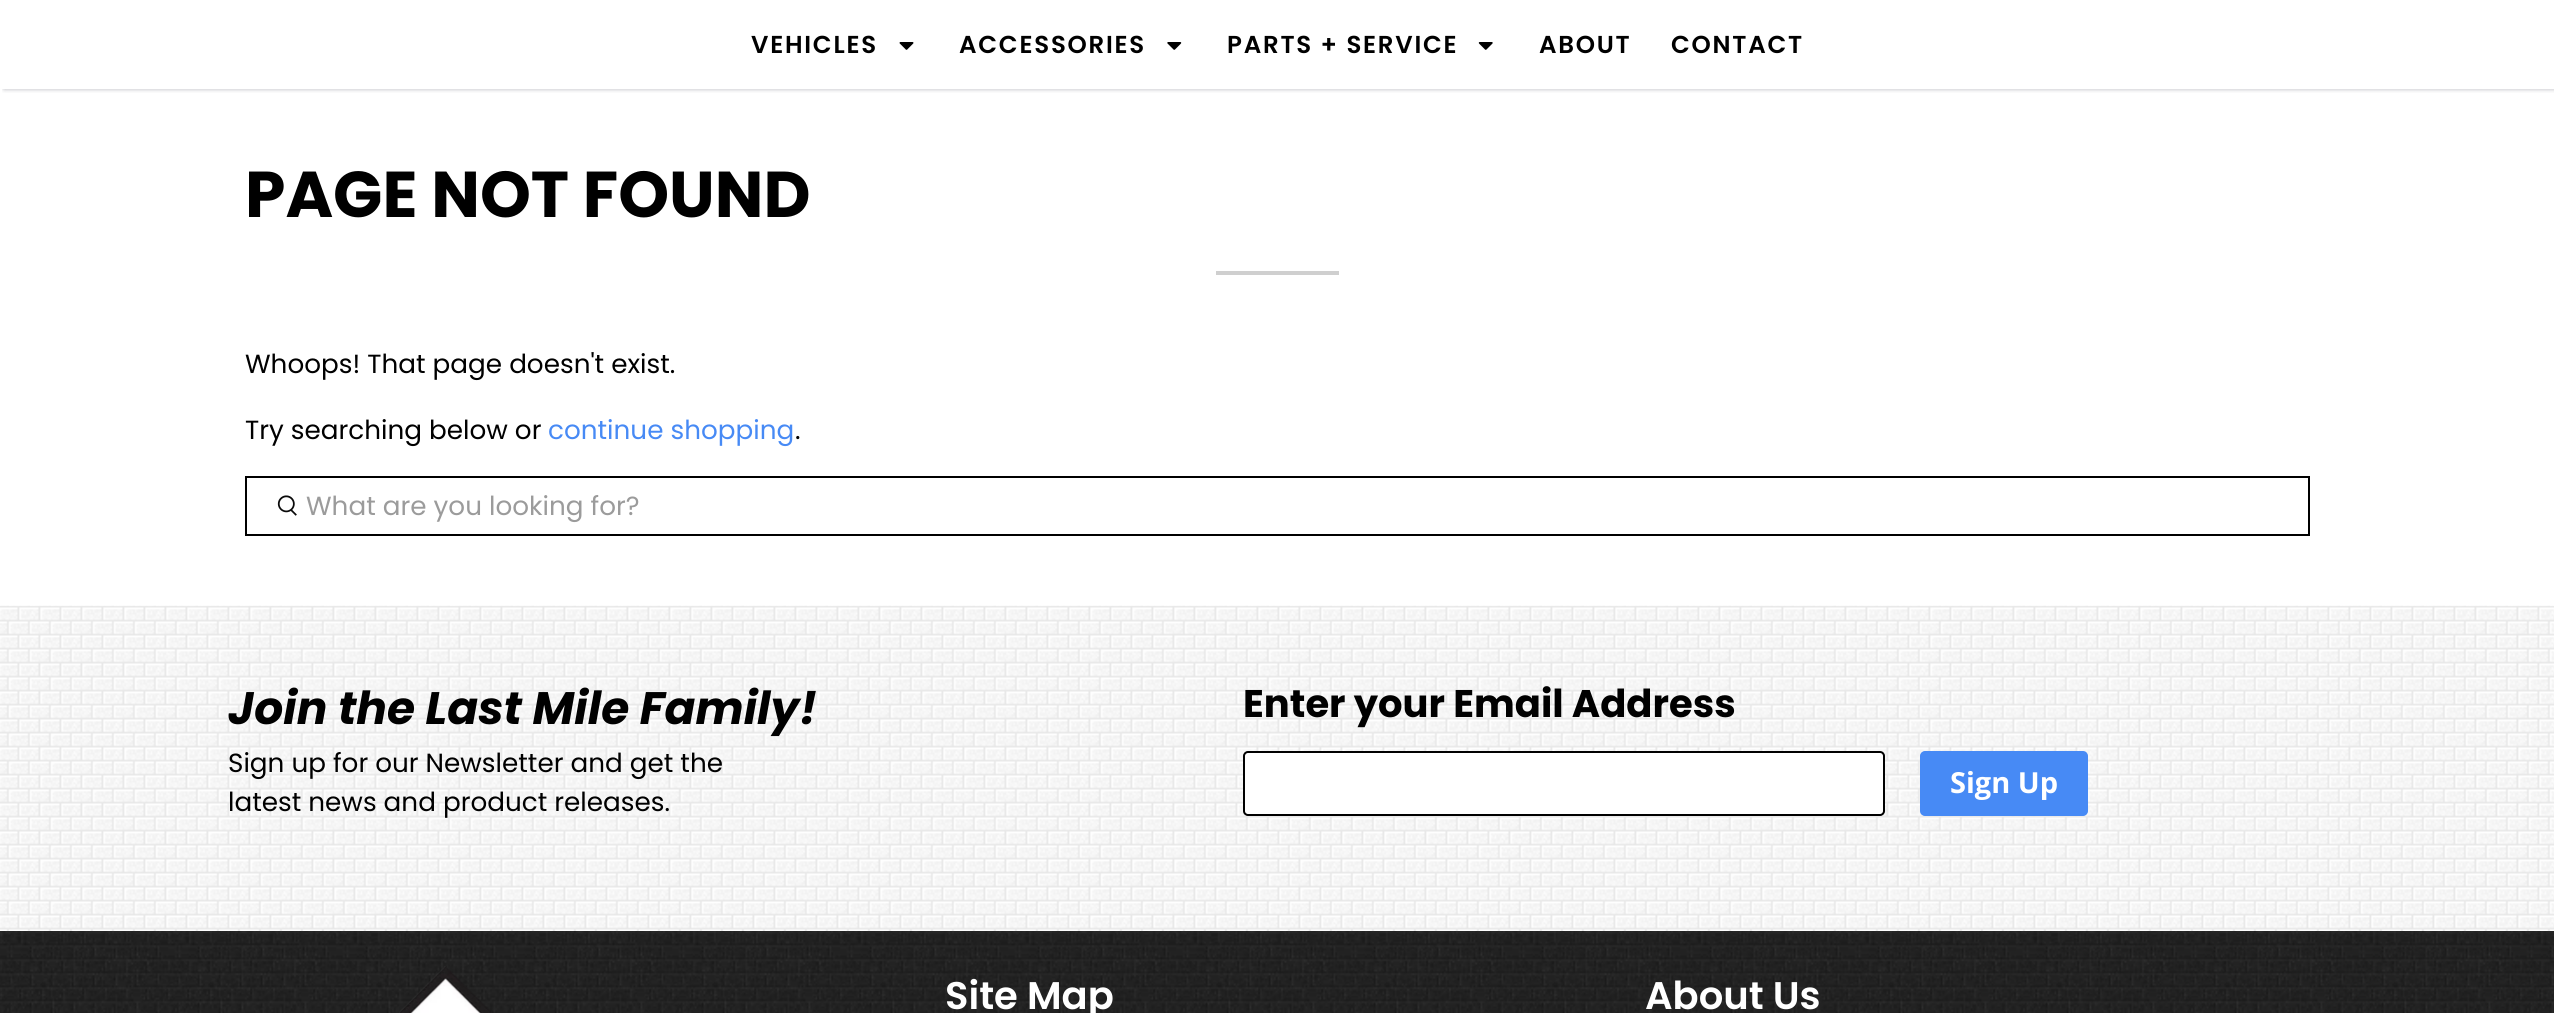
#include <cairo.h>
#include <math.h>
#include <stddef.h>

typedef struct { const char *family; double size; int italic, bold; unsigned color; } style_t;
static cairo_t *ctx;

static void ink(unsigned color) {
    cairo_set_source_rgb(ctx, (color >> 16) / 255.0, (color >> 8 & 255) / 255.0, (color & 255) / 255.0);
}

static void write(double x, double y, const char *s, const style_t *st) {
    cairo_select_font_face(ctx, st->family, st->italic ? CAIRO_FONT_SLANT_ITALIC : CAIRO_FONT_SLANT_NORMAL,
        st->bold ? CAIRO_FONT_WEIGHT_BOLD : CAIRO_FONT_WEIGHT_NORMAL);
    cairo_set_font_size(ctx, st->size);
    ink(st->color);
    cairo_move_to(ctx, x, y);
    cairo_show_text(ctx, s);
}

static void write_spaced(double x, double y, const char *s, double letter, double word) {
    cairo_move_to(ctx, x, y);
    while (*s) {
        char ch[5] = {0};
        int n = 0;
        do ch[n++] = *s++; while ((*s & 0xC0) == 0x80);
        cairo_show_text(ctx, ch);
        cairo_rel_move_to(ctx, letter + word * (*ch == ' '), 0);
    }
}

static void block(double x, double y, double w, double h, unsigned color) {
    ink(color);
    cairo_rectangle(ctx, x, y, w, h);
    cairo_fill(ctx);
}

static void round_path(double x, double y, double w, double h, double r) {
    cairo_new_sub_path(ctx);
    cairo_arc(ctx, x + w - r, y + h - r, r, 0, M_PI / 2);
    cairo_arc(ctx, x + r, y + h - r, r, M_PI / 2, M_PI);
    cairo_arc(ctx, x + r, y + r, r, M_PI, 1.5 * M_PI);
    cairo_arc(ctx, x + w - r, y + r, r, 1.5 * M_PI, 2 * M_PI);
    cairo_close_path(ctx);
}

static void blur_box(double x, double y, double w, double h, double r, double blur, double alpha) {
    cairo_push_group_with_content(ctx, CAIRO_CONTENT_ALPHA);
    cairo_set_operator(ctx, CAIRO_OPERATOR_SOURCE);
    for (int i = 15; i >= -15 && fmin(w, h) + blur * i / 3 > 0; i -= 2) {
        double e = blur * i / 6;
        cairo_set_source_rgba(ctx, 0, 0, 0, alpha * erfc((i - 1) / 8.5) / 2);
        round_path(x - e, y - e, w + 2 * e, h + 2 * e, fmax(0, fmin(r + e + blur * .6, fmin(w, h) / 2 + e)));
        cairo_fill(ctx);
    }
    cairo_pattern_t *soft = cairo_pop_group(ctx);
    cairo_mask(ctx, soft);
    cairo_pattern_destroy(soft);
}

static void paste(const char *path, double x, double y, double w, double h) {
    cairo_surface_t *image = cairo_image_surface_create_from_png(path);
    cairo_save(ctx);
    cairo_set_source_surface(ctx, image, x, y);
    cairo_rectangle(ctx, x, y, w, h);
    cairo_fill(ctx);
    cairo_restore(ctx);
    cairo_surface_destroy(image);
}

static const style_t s1 = {"Poppins", 64.75, 0, 1, 0x000000};
static const style_t s2 = {"Poppins", 26.25, 0, 0, 0x000000};
static const style_t s3 = {"Poppins", 26.25, 0, 0, 0x478af5};
static const style_t s4 = {"Poppins", 26.25, 0, 0, 0x9b9b9b};
static const style_t s5 = {"Poppins", 45.5, 1, 1, 0x000000};
static const style_t s6 = {"Poppins", 38.5, 0, 1, 0x000000};
static const style_t s7 = {"Open Sans", 29, 0, 1, 0xffffff};
static const style_t s8 = {"Poppins SemiBold", 38.5, 0, 0, 0xffffff};

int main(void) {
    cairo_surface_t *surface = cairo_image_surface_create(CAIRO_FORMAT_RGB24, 2554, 1013);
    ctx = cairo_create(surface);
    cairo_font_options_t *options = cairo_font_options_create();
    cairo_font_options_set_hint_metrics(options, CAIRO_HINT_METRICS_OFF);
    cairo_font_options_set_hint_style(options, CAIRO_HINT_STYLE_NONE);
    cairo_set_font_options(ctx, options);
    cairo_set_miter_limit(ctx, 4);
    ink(0xffffff);
    cairo_paint(ctx);
    cairo_save(ctx);
    cairo_rectangle(ctx, 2, 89, 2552, 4);
    cairo_clip(ctx);
    ink(0x292c3d);
    blur_box(4, -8, 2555, 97, 0, 2.5, 0.34);
    cairo_restore(ctx);
    cairo_select_font_face(ctx, "Poppins SemiBold", CAIRO_FONT_SLANT_NORMAL, CAIRO_FONT_WEIGHT_NORMAL);
    cairo_set_font_size(ctx, 24.5);
    ink(0x000000);
    write_spaced(751, 53, "VEHICLES", 1.75, 0);
    paste("pic1.png", 899, 42, 15, 8);
    write_spaced(959, 53, "ACCESSORIES", 1.75, 0);
    paste("pic2.png", 1167, 42, 15, 8);
    write_spaced(1227, 53, "PARTS + SERVICE", 1.75, 0);
    paste("pic3.png", 1478, 42, 15, 8);
    write_spaced(1539, 53, "ABOUT", 1.75, 0);
    write_spaced(1671, 53, "CONTACT", 1.75, 0);
    write(245, 217, "PAGE NOT FOUND", &s1);
    block(1216, 271, 123, 4, 0xcfcfcf);
    write(245, 373, "Whoops! That page doesn't exist.", &s2);
    write(245, 439, "Try searching below or", &s2);
    write(548, 439, "continue shopping", &s3);
    write(795, 439, ".", &s2);
    cairo_rectangle(ctx, 246, 477, 2063, 58);
    cairo_stroke(ctx);
    paste("pic4.png", 277, 495, 20, 21);
    write(306, 515, "What are you looking for?", &s4);
    paste("pic5.png", 0, 605, 2554, 326);
    write(228, 724, "Join the Last Mile Family!", &s5);
    write(228, 772, "Sign up for our Newsletter and get the", &s2);
    write(228, 811, "latest news and product releases.", &s2);
    write(1243, 717, "Enter your Email Address", &s6);
    ink(0xffffff);
    round_path(1244, 752, 640, 63, 4);
    cairo_fill_preserve(ctx);
    ink(0x000000);
    cairo_stroke(ctx);
    ink(0x478af5);
    round_path(1921, 752, 166, 63, 4);
    cairo_fill_preserve(ctx);
    cairo_stroke(ctx);
    write(1950, 793, "Sign Up", &s7);
    paste("pic6.png", 0, 931, 2554, 82);
    paste("pic7.png", 399, 966, 92, 47);
    write(945, 1009, "Site Map", &s8);
    write(1645, 1009, "About Us", &s8);
    cairo_surface_write_to_png(surface, "screenshot.png");
    cairo_font_options_destroy(options);
    cairo_destroy(ctx);
    cairo_surface_destroy(surface);
    return 0;
}
